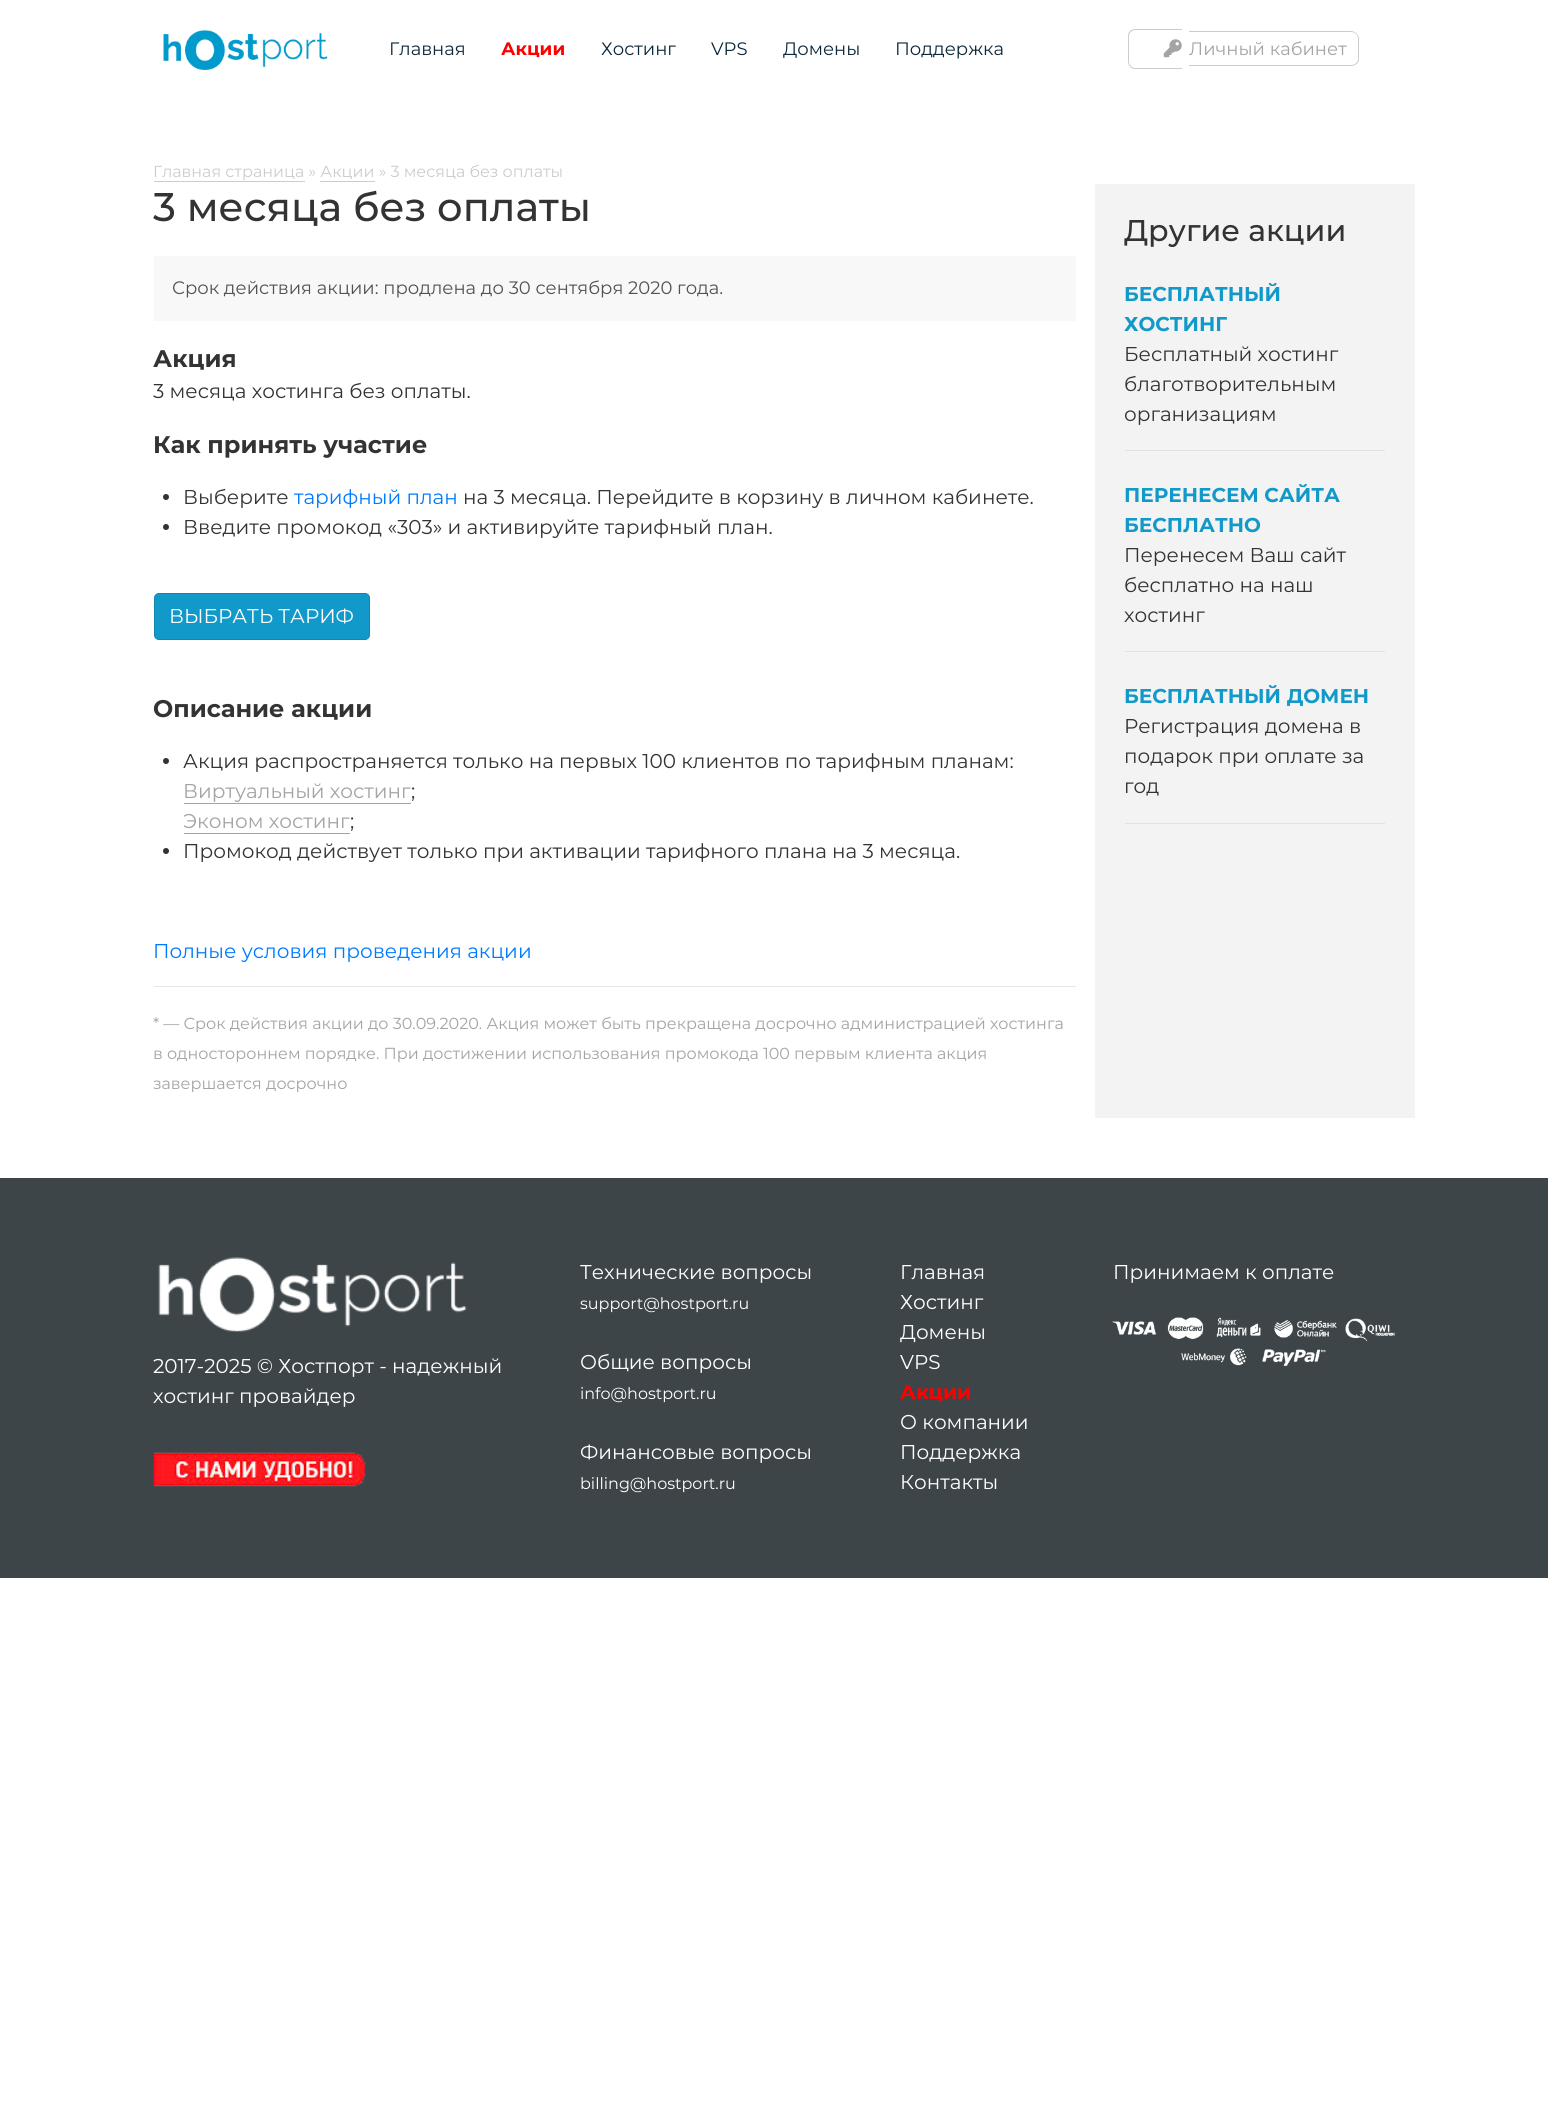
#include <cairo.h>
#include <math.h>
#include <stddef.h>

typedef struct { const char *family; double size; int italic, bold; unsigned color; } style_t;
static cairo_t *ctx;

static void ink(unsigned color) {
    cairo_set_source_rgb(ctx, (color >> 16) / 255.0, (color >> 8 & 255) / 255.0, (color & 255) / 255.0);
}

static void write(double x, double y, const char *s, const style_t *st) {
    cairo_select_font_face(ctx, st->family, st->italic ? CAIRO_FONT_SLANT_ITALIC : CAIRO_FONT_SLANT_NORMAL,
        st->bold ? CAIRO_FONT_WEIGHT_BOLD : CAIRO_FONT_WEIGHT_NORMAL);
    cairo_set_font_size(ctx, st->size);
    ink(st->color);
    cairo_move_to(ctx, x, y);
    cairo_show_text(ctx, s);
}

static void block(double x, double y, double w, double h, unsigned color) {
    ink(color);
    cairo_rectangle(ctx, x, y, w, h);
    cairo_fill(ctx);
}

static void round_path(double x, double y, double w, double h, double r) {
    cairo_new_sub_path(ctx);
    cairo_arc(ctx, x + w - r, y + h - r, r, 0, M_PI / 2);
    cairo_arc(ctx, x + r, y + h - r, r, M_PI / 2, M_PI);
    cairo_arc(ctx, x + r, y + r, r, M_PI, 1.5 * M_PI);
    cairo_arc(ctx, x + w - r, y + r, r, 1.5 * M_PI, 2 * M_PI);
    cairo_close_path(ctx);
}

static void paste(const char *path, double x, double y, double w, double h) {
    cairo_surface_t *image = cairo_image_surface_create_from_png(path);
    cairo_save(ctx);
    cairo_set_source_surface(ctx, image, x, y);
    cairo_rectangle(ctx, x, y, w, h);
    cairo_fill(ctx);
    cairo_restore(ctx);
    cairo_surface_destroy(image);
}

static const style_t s1 = {"Montserrat", 18, 0, 0, 0x0e2839};
static const style_t s2 = {"Montserrat", 18, 0, 1, 0xff0000};
static const style_t s3 = {"Montserrat", 18, 0, 0, 0xa4a4a4};
static const style_t s4 = {"Montserrat", 16, 0, 0, 0xcccccc};
static const style_t s5 = {"Montserrat Medium", 40, 0, 0, 0x333333};
static const style_t s6 = {"Montserrat", 18, 0, 0, 0x525252};
static const style_t s7 = {"Montserrat", 24, 0, 1, 0x333333};
static const style_t s8 = {"Montserrat", 20, 0, 0, 0x333333};
static const style_t s9 = {"Montserrat", 20, 0, 0, 0x007bff};
static const style_t s10 = {"Montserrat", 20, 0, 0, 0xffffff};
static const style_t s11 = {"Montserrat", 20, 0, 0, 0xa4a4a4};
static const style_t s12 = {"Montserrat", 16, 0, 0, 0xa4a4a4};
static const style_t s13 = {"Montserrat Medium", 30, 0, 0, 0x333333};
static const style_t s14 = {"Montserrat", 20, 0, 1, 0x1199c9};
static const style_t s15 = {"Montserrat", 16, 0, 0, 0xffffff};
static const style_t s16 = {"Montserrat", 20, 0, 1, 0xff0000};

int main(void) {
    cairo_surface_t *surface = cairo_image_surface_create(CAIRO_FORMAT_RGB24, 1548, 2121);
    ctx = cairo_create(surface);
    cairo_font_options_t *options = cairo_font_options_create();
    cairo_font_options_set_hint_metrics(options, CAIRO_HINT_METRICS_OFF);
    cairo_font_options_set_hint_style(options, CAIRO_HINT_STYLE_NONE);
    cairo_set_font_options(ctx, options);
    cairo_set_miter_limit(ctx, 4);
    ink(0xffffff);
    cairo_paint(ctx);
    paste("pic1.png", 163, 30, 165, 40);
    write(389, 55, "Главная", &s1);
    write(501, 55, "Акции", &s2);
    write(601, 55, "Хостинг", &s1);
    write(711, 55, "VPS", &s1);
    write(783, 55, "Домены", &s1);
    write(895, 55, "Поддержка", &s1);
    ink(0xcccccc);
    cairo_set_fill_rule(ctx, CAIRO_FILL_RULE_EVEN_ODD);
    cairo_new_path(ctx);
    cairo_move_to(ctx, 1135, 29);
    cairo_line_to(ctx, 1182, 29);
    cairo_line_to(ctx, 1182, 69);
    cairo_line_to(ctx, 1135, 69);
    cairo_curve_to(ctx, 1131, 69, 1128, 65, 1128, 61);
    cairo_line_to(ctx, 1128, 36);
    cairo_curve_to(ctx, 1128, 32, 1131, 29, 1135, 29);
    cairo_close_path(ctx);
    cairo_move_to(ctx, 1135, 30);
    cairo_line_to(ctx, 1182, 30);
    cairo_line_to(ctx, 1182, 68);
    cairo_line_to(ctx, 1135, 68);
    cairo_curve_to(ctx, 1132, 68, 1129, 65, 1129, 61);
    cairo_line_to(ctx, 1129, 36);
    cairo_curve_to(ctx, 1129, 33, 1132, 30, 1135, 30);
    cairo_close_path(ctx);
    cairo_fill(ctx);
    cairo_new_path(ctx);
    cairo_move_to(ctx, 1189, 31);
    cairo_line_to(ctx, 1351, 31);
    cairo_curve_to(ctx, 1355, 31, 1359, 35, 1359, 39);
    cairo_line_to(ctx, 1359, 59);
    cairo_curve_to(ctx, 1359, 63, 1355, 66, 1351, 66);
    cairo_line_to(ctx, 1189, 66);
    cairo_close_path(ctx);
    cairo_move_to(ctx, 1189, 32);
    cairo_line_to(ctx, 1351, 32);
    cairo_curve_to(ctx, 1355, 32, 1358, 35, 1358, 39);
    cairo_line_to(ctx, 1358, 59);
    cairo_curve_to(ctx, 1358, 62, 1355, 65, 1351, 65);
    cairo_line_to(ctx, 1189, 65);
    cairo_close_path(ctx);
    cairo_fill(ctx);
    paste("pic2.png", 1163, 39, 19, 19);
    write(1189, 55, "Личный кабинет", &s3);
    write(153, 177, "Главная страница » Акции » 3 месяца без оплаты", &s4);
    block(154, 181, 151, 1, 0xcccccc);
    block(320, 181, 55, 1, 0xcccccc);
    write(153, 221, "3 месяца без оплаты", &s5);
    block(154, 256, 922, 65, 0xf8f8f8);
    write(172, 294, "Срок действия акции: продлена до 30 сентября 2020 года.", &s6);
    write(153, 367, "Акция", &s7);
    write(153, 398, "3 месяца хостинга без оплаты.", &s8);
    write(153, 453, "Как принять участие", &s7);
    cairo_new_path(ctx);
    cairo_arc(ctx, 166, 497, 3, 0, 2 * M_PI);
    cairo_fill(ctx);
    write(183, 504, "Выберите", &s8);
    write(294, 504, "тарифный план", &s9);
    write(463, 504, "на 3 месяца. Перейдите в корзину в личном кабинете.", &s8);
    cairo_new_path(ctx);
    cairo_arc(ctx, 166, 527, 3, 0, 2 * M_PI);
    cairo_fill(ctx);
    write(183, 534, "Введите промокод «303» и активируйте тарифный план.", &s8);
    ink(0x1199c9);
    round_path(154.5, 593.5, 215, 46, 4.5);
    cairo_fill_preserve(ctx);
    ink(0x1187b0);
    cairo_set_line_width(ctx, 1);
    cairo_stroke(ctx);
    write(169, 623, "ВЫБРАТЬ ТАРИФ", &s10);
    write(153, 717, "Описание акции", &s7);
    cairo_new_path(ctx);
    cairo_arc(ctx, 166, 761, 3, 0, 2 * M_PI);
    cairo_fill(ctx);
    write(183, 768, "Акция распространяется только на первых 100 клиентов по тарифным планам:", &s8);
    write(183, 798, "Виртуальный хостинг", &s11);
    block(184, 803, 227, 1, 0xa4a4a4);
    write(411, 798, ";", &s8);
    write(183, 828, "Эконом хостинг", &s11);
    block(184, 833, 166, 1, 0xa4a4a4);
    write(350, 828, ";", &s8);
    cairo_new_path(ctx);
    cairo_arc(ctx, 166, 851, 3, 0, 2 * M_PI);
    cairo_fill(ctx);
    write(183, 858, "Промокод действует только при активации тарифного плана на 3 месяца.", &s8);
    write(153, 958, "Полные условия проведения акции", &s9);
    block(154, 986, 922, 1, 0xe6e6e6);
    write(153, 1029, "* — Срок действия акции до 30.09.2020. Акция может быть прекращена досрочно администрацией хостинга", &s12);
    write(153, 1059, "в одностороннем порядке. При достижении использования промокода 100 первым клиента акция", &s12);
    write(153, 1089, "завершается досрочно", &s12);
    block(1095, 184, 320, 934, 0xf3f3f3);
    write(1124, 241, "Другие акции", &s13);
    block(1125, 450, 260, 1, 0xdee2e6);
    write(1124, 301, "БЕСПЛАТНЫЙ", &s14);
    write(1124, 331, "ХОСТИНГ", &s14);
    write(1124, 361, "Бесплатный хостинг", &s8);
    write(1124, 391, "благотворительным", &s8);
    write(1124, 421, "организациям", &s8);
    block(1125, 651, 260, 1, 0xdee2e6);
    write(1124, 502, "ПЕРЕНЕСЕМ САЙТА", &s14);
    write(1124, 532, "БЕСПЛАТНО", &s14);
    write(1124, 562, "Перенесем Ваш сайт", &s8);
    write(1124, 592, "бесплатно на наш", &s8);
    write(1124, 622, "хостинг", &s8);
    block(1125, 823, 260, 1, 0xdee2e6);
    write(1124, 703, "БЕСПЛАТНЫЙ ДОМЕН", &s14);
    write(1124, 733, "Регистрация домена в", &s8);
    write(1124, 763, "подарок при оплате за", &s8);
    write(1124, 793, "год", &s8);
    block(0, 1178, 1548, 400, 0x3d4548);
    write(580, 1279, "Технические вопросы", &s10);
    write(580, 1309, "support@hostport.ru", &s15);
    write(580, 1369, "Общие вопросы", &s10);
    write(580, 1399, "info@hostport.ru", &s15);
    write(580, 1459, "Финансовые вопросы", &s10);
    write(580, 1489, "billing@hostport.ru", &s15);
    write(900, 1279, "Главная", &s10);
    write(900, 1309, "Хостинг", &s10);
    write(900, 1339, "Домены", &s10);
    write(900, 1369, "VPS", &s10);
    write(900, 1399, "Акции", &s16);
    write(900, 1429, "О компании", &s10);
    write(900, 1459, "Поддержка", &s10);
    write(900, 1489, "Контакты", &s10);
    write(1113, 1279, "Принимаем к оплате", &s10);
    paste("pic3.png", 1112, 1317, 283, 50);
    paste("pic4.png", 158, 1257, 309, 75);
    write(153, 1373, "2017-2025 © Хостпорт - надежный", &s10);
    write(153, 1403, "хостинг провайдер", &s10);
    paste("pic5.png", 153, 1452, 213, 35);
    cairo_surface_write_to_png(surface, "screenshot.png");
    cairo_font_options_destroy(options);
    cairo_destroy(ctx);
    cairo_surface_destroy(surface);
    return 0;
}
